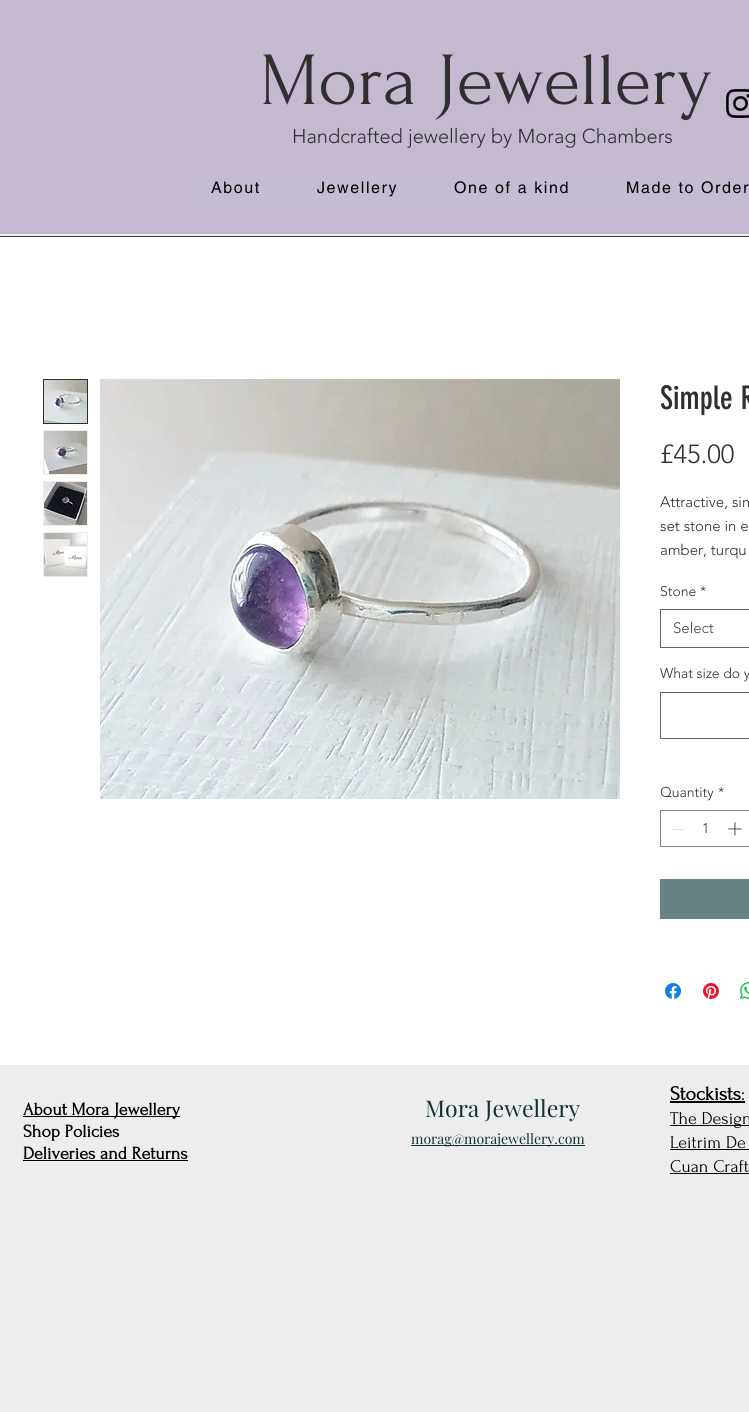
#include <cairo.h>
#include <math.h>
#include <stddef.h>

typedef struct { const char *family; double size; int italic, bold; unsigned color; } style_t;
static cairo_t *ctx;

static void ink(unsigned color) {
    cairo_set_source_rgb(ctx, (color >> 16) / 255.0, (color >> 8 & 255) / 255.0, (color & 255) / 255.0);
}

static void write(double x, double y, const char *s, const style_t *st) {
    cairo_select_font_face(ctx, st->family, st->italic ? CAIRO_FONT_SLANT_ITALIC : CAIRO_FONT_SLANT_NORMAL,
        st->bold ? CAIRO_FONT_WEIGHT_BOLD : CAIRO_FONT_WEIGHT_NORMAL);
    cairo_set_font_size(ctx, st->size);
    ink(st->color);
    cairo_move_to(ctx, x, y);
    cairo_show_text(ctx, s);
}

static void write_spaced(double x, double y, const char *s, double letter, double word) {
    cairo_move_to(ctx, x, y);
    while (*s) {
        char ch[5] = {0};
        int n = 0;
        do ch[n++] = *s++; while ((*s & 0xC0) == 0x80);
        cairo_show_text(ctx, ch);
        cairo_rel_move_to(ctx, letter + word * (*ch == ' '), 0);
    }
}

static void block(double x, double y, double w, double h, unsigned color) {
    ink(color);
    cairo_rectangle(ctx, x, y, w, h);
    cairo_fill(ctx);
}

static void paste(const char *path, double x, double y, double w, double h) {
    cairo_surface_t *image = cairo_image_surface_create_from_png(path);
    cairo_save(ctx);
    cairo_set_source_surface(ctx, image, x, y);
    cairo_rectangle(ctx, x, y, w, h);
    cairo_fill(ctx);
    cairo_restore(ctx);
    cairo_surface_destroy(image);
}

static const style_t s1 = {"Forum", 75, 0, 0, 0x2f2f30};
static const style_t s2 = {"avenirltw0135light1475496 Light", 20, 0, 0, 0x2f2f30};
static const style_t s3 = {"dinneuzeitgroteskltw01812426", 32, 0, 0, 0x2f2f30};
static const style_t s4 = {"avenirltw0135light1475496 Light", 26, 0, 0, 0x2f2f30};
static const style_t s5 = {"avenirltw0135light1475496 Light", 15, 0, 0, 0x2f2f30};
static const style_t s6 = {"avenirltw0135light1475496 Light", 14, 0, 0, 0x2f2f30};
static const style_t s7 = {"avenirltw0135light1475496 Light", 15, 0, 0, 0x444444};
static const style_t s8 = {"Forum", 18, 0, 1, 0x000000};
static const style_t s9 = {"Playfair Display", 23, 0, 0, 0x123132};
static const style_t s10 = {"Playfair Display", 14, 0, 0, 0x123132};
static const style_t s11 = {"Forum", 20, 0, 1, 0x000000};
static const style_t s12 = {"Forum", 20, 0, 0, 0x000000};
static const style_t s13 = {"Forum", 18, 0, 0, 0x000000};

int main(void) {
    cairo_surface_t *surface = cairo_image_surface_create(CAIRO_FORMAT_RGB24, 749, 1412);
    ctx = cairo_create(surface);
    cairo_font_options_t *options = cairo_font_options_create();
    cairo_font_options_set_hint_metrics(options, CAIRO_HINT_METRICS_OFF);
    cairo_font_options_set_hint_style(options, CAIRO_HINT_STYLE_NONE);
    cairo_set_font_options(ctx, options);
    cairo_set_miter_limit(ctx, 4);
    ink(0xededee);
    cairo_paint(ctx);
    block(0, 0, 749, 234, 0xc4b9cf);
    write(260, 104, "Mora Jewellery", &s1);
    paste("pic1.png", 726, 89, 23, 29);
    write(292, 143, "Handcrafted jewellery by Morag Chambers", &s2);
    block(186, 168, 563, 41, 0xc6bcd1);
    cairo_select_font_face(ctx, "helvetica", CAIRO_FONT_SLANT_NORMAL, CAIRO_FONT_WEIGHT_NORMAL);
    cairo_set_font_size(ctx, 16);
    ink(0x000000);
    write_spaced(211, 193, "About", 1.6, 0);
    write_spaced(317, 193, "Jewellery", 1.6, 0);
    write_spaced(454, 193, "One of a kind", 1.6, 0);
    write_spaced(626, 193, "Made to Order", 1.6, 0);
    block(0, 236, 749, 1, 0x424242);
    block(0, 237, 749, 828, 0xffffff);
    cairo_rectangle(ctx, 43.5, 379.5, 44, 44);
    ink(0x2f2f30);
    cairo_set_line_width(ctx, 1);
    cairo_stroke(ctx);
    paste("pic2.png", 44, 380, 43, 43);
    block(43, 430, 45, 45, 0xededee);
    paste("pic3.png", 44, 431, 43, 43);
    block(43, 481, 45, 45, 0xededee);
    paste("pic4.png", 44, 482, 43, 43);
    block(43, 532, 45, 45, 0xededee);
    paste("pic5.png", 44, 533, 43, 43);
    paste("pic6.png", 100, 379, 520, 420);
    write(660, 409, "Simple R", &s3);
    write(660, 463, "£45.00", &s4);
    write(660, 507, "Attractive, sim", &s5);
    write(660, 531, "set stone in e", &s5);
    write(660, 555, "amber, turqu", &s5);
    write(660, 596, "Stone", &s6);
    write(700, 596, "*", &s6);
    cairo_rectangle(ctx, 660.5, 609.5, 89, 38);
    ink(0x666666);
    cairo_stroke(ctx);
    write(673, 633, "Select", &s7);
    write(660, 678, "What size do y", &s6);
    cairo_rectangle(ctx, 660.5, 692.5, 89, 46);
    ink(0x666666);
    cairo_stroke(ctx);
    write(660, 797, "Quantity", &s6);
    write(718, 797, "*", &s6);
    cairo_rectangle(ctx, 660.5, 810.5, 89, 36);
    ink(0x828283);
    cairo_stroke(ctx);
    block(672, 829, 13, 1, 0xe3e3e3);
    write(702, 833, "1", &s6);
    paste("pic7.png", 728, 822, 14, 14);
    block(660, 879, 89, 40, 0x688384);
    paste("pic8.png", 665, 983, 16, 16);
    paste("pic9.png", 703, 983, 16, 16);
    paste("pic10.png", 740, 982, 9, 17);
    block(23, 1116, 157, 1, 0x000000);
    write(23, 1115, "About Mora Jewellery", &s8);
    write(23, 1137, "Shop Policies", &s8);
    write(23, 1159, "Deliveries and Returns", &s8);
    block(23, 1160, 165, 1, 0x000000);
    write(425, 1117, "Mora Jewellery", &s9);
    block(411, 1145, 174, 1, 0x123132);
    write(411, 1144, "morag@morajewellery.com", &s10);
    write(670, 1100, "Stockists", &s11);
    write(741, 1100, ":", &s12);
    block(670, 1101, 75, 2, 0x000000);
    block(670, 1125, 79, 1, 0x000000);
    write(670, 1124, "The Design", &s13);
    write(670, 1148, "Leitrim De", &s13);
    block(670, 1149, 79, 1, 0x000000);
    write(670, 1172, "Cuan Craft", &s13);
    block(670, 1173, 79, 1, 0x000000);
    cairo_surface_write_to_png(surface, "screenshot.png");
    cairo_font_options_destroy(options);
    cairo_destroy(ctx);
    cairo_surface_destroy(surface);
    return 0;
}
